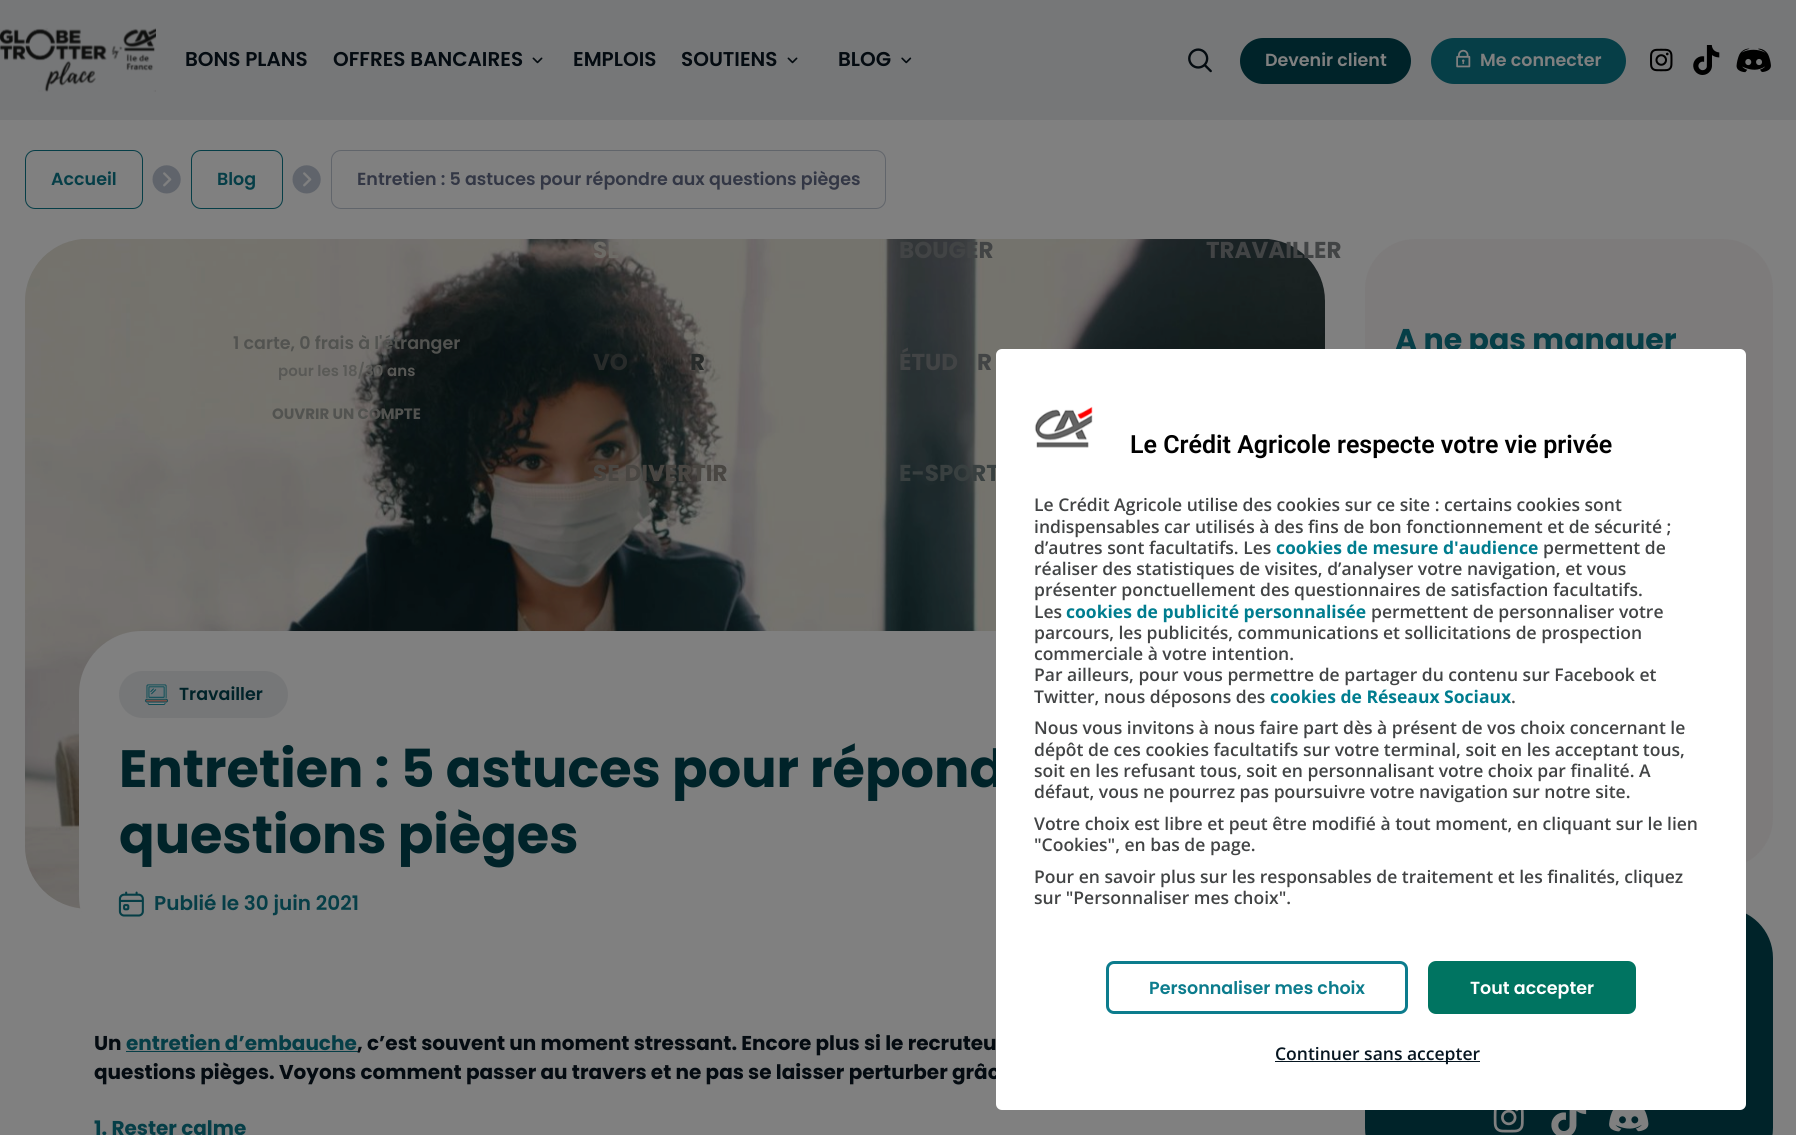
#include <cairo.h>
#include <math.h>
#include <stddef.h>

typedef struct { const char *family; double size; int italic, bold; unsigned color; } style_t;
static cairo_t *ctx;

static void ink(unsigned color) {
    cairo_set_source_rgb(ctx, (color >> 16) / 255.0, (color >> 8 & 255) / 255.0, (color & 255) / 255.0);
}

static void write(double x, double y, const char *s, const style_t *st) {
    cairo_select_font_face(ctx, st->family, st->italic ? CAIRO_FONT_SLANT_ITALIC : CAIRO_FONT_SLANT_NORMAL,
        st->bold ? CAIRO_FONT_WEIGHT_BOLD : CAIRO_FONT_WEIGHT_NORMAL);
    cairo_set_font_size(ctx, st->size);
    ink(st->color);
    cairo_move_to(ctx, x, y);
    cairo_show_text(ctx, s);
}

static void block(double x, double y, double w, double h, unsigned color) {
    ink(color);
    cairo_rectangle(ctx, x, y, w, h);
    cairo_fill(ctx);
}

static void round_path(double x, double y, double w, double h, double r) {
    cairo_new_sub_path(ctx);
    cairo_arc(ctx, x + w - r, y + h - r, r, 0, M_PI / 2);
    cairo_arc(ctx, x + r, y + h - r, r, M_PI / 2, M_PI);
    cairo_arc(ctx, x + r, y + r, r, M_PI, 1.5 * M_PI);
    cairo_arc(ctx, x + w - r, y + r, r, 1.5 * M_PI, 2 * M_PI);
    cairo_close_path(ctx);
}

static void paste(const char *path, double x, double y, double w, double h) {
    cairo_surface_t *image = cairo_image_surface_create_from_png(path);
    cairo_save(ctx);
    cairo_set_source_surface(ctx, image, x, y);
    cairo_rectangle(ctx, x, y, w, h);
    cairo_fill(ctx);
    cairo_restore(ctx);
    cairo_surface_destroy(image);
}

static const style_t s1 = {"Poppins SemiBold", 20, 0, 0, 0x040b11};
static const style_t s2 = {"Poppins SemiBold", 17.5, 0, 0, 0x525350};
static const style_t s3 = {"Poppins SemiBold", 15, 0, 0, 0x595956};
static const style_t s4 = {"Poppins", 15, 0, 1, 0x525350};
static const style_t s5 = {"Poppins", 23, 0, 1, 0x6d6b66};
static const style_t s6 = {"Poppins", 23, 0, 1, 0x424445};
static const style_t s7 = {"Poppins", 23, 0, 1, 0x282b2a};
static const style_t s8 = {"Poppins", 23, 0, 1, 0x494642};
static const style_t s9 = {"Poppins", 23, 0, 1, 0x394040};
static const style_t s10 = {"Poppins SemiBold", 17.5, 0, 0, 0x808080};
static const style_t s11 = {"Poppins SemiBold", 17.5, 0, 0, 0x063e47};
static const style_t s12 = {"Poppins SemiBold", 17.5, 0, 0, 0x333745};
static const style_t s13 = {"Poppins", 30, 0, 1, 0x063e47};
static const style_t s14 = {"Poppins SemiBold", 17.5, 0, 0, 0x002329};
static const style_t s15 = {"Poppins", 52.5, 0, 1, 0x002329};
static const style_t s16 = {"Poppins SemiBold", 20, 0, 0, 0x063e47};
static const style_t s17 = {"Poppins", 20, 0, 1, 0x040b11};
static const style_t s18 = {"Poppins", 20, 0, 1, 0x063e47};
static const style_t s19 = {"Roboto SemiBold", 25, 0, 0, 0x000000};
static const style_t s20 = {"Open Sans SemiBold", 17.5, 0, 0, 0x424445};
static const style_t s21 = {"Open Sans", 17.5, 0, 1, 0x007d8f};
static const style_t s22 = {"Poppins SemiBold", 17.5, 0, 0, 0x0c7c8d};
static const style_t s23 = {"Poppins SemiBold", 17.5, 0, 0, 0xffffff};
static const style_t s24 = {"Open Sans SemiBold", 17.5, 0, 0, 0x071621};

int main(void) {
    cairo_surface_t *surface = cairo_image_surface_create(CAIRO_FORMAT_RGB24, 1796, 1135);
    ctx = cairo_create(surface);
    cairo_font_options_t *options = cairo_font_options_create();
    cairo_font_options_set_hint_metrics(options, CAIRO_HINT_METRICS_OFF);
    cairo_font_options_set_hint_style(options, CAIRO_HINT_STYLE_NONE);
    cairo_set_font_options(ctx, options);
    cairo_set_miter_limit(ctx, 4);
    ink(0x808080);
    cairo_paint(ctx);
    block(0, 0, 1796, 120, 0x767778);
    paste("pic1.png", 0, 28, 156, 64);
    write(185, 66, "BONS PLANS", &s1);
    write(838, 66, "BLOG", &s1);
    paste("pic2.png", 901, 57, 11, 7);
    ink(0x7d7b7b);
    round_path(25, 239, 1300, 670, 63);
    cairo_fill(ctx);
    paste("pic13.png", 25, 239, 1300, 670);
    write(233, 349, "1 carte, 0 frais à l'étranger", &s2);
    write(278, 376, "pour les 18/30 ans", &s3);
    write(272, 419, "OUVRIR UN COMPTE", &s4);
    write(593, 258, "SE", &s5);
    write(899, 258, "BOUGER", &s6);
    write(1206, 258, "TRAVAILLER", &s6);
    write(593, 370, "VO", &s7);
    write(690, 370, "R", &s7);
    write(899, 370, "ÉTUD", &s6);
    write(977, 370, "R", &s6);
    write(593, 481, "SE DIVERTIR", &s8);
    write(899, 481, "E-SPORT", &s9);
    write(333, 66, "OFFRES BANCAIRES", &s1);
    paste("pic3.png", 532, 57, 11, 7);
    write(573, 66, "EMPLOIS", &s1);
    write(681, 66, "SOUTIENS", &s1);
    paste("pic3.png", 787, 57, 11, 7);
    paste("pic4.png", 1188, 48, 24, 25);
    ink(0x002329);
    round_path(1240, 38, 171, 46, 23);
    cairo_fill(ctx);
    write(1265, 66, "Devenir client", &s10);
    ink(0x063e47);
    round_path(1431, 38, 195, 46, 23);
    cairo_fill(ctx);
    paste("pic5.png", 1456, 49, 15, 19);
    write(1480, 66, "Me connecter", &s10);
    paste("pic6.png", 1650, 48, 23, 24);
    paste("pic7.png", 1693, 45, 27, 30);
    paste("pic8.png", 1736, 48, 35, 25);
    round_path(25.5, 150.5, 117, 58, 9.5);
    ink(0x063e47);
    cairo_set_line_width(ctx, 1);
    cairo_stroke(ctx);
    write(51, 185, "Accueil", &s11);
    paste("pic9.png", 152, 165, 29, 29);
    round_path(191.5, 150.5, 91, 58, 9.5);
    cairo_stroke(ctx);
    write(217, 185, "Blog", &s11);
    paste("pic9.png", 292, 165, 29, 29);
    round_path(331.5, 150.5, 554, 58, 9.5);
    ink(0x61656b);
    cairo_stroke(ctx);
    write(357, 185, "Entretien : 5 astuces pour répondre aux questions pièges", &s12);
    ink(0x7d7b7b);
    round_path(1365, 239, 408, 629, 50);
    cairo_fill(ctx);
    write(1395, 350, "A ne pas manquer", &s13);
    ink(0x002329);
    round_path(1365, 908, 408, 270, 50);
    cairo_fill(ctx);
    paste("pic10.png", 1493, 1110, 31, 23);
    paste("pic11.png", 1551, 1110, 36, 25);
    paste("pic12.png", 1609, 1110, 40, 22);
    ink(0x808080);
    round_path(79, 631, 1192, 328, 63);
    cairo_fill(ctx);
    ink(0x767778);
    round_path(119, 671, 169, 47, 23.5);
    cairo_fill(ctx);
    paste("pic14.png", 145, 684, 23, 21);
    write(179, 700, "Travailler", &s14);
    write(119, 787, "Entretien : 5 astuces pour répond", &s15);
    write(119, 853, "questions pièges", &s15);
    paste("pic15.png", 118, 891, 26, 26);
    write(154, 910, "Publié le 30 juin 2021", &s16);
    write(94, 1050, "Un", &s17);
    write(126, 1050, "entretien d’embauche", &s18);
    block(126, 1051, 232, 1, 0x063e47);
    write(357, 1050, ", c’est souvent un moment stressant. Encore plus si le recruteu", &s17);
    write(94, 1079, "questions pièges. Voyons comment passer au travers et ne pas se laisser perturber grâc", &s17);
    write(94, 1135, "1. Rester calme", &s18);
    ink(0xffffff);
    round_path(996, 349, 750, 761, 6);
    cairo_fill(ctx);
    paste("pic16.png", 1034, 406, 59, 42);
    write(1130, 453, "Le Crédit Agricole respecte votre vie privée", &s19);
    write(1034, 511, "Le Crédit Agricole utilise des cookies sur ce site : certains cookies sont", &s20);
    write(1034, 533, "indispensables car utilisés à des fins de bon fonctionnement et de sécurité ;", &s20);
    write(1034, 554, "d’autres sont facultatifs. Les", &s20);
    write(1276, 554, "cookies de mesure d'audience", &s21);
    write(1543, 554, "permettent de", &s20);
    write(1034, 575, "réaliser des statistiques de visites, d’analyser votre navigation, et vous", &s20);
    write(1034, 596, "présenter ponctuellement des questionnaires de satisfaction facultatifs.", &s20);
    write(1034, 618, "Les", &s20);
    write(1066, 618, "cookies de publicité personnalisée", &s21);
    write(1371, 618, "permettent de personnaliser votre", &s20);
    write(1034, 639, "parcours, les publicités, communications et sollicitations de prospection", &s20);
    write(1034, 660, "commerciale à votre intention.", &s20);
    write(1034, 681, "Par ailleurs, pour vous permettre de partager du contenu sur Facebook et", &s20);
    write(1034, 703, "Twitter, nous déposons des", &s20);
    write(1270, 703, "cookies de Réseaux Sociaux", &s21);
    write(1511, 703, ".", &s20);
    write(1034, 734, "Nous vous invitons à nous faire part dès à présent de vos choix concernant le", &s20);
    write(1034, 756, "dépôt de ces cookies facultatifs sur votre terminal, soit en les acceptant tous,", &s20);
    write(1034, 777, "soit en les refusant tous, soit en personnalisant votre choix par finalité. A", &s20);
    write(1034, 798, "défaut, vous ne pourrez pas poursuivre votre navigation sur notre site.", &s20);
    write(1034, 830, "Votre choix est libre et peut être modifié à tout moment, en cliquant sur le lien", &s20);
    write(1034, 851, "\"Cookies\", en bas de page.", &s20);
    write(1034, 883, "Pour en savoir plus sur les responsables de traitement et les finalités, cliquez", &s20);
    write(1034, 904, "sur \"Personnaliser mes choix\".", &s20);
    round_path(1107.5, 962.5, 299, 50, 6.5);
    ink(0x0c7c8d);
    cairo_set_line_width(ctx, 3);
    cairo_stroke(ctx);
    write(1149, 994, "Personnaliser mes choix", &s22);
    ink(0x007461);
    round_path(1429.5, 962.5, 205, 50, 6.5);
    cairo_fill_preserve(ctx);
    cairo_stroke(ctx);
    write(1470, 994, "Tout accepter", &s23);
    block(1275, 1061, 205, 1, 0x071621);
    write(1275, 1060, "Continuer sans accepter", &s24);
    cairo_surface_write_to_png(surface, "screenshot.png");
    cairo_font_options_destroy(options);
    cairo_destroy(ctx);
    cairo_surface_destroy(surface);
    return 0;
}
